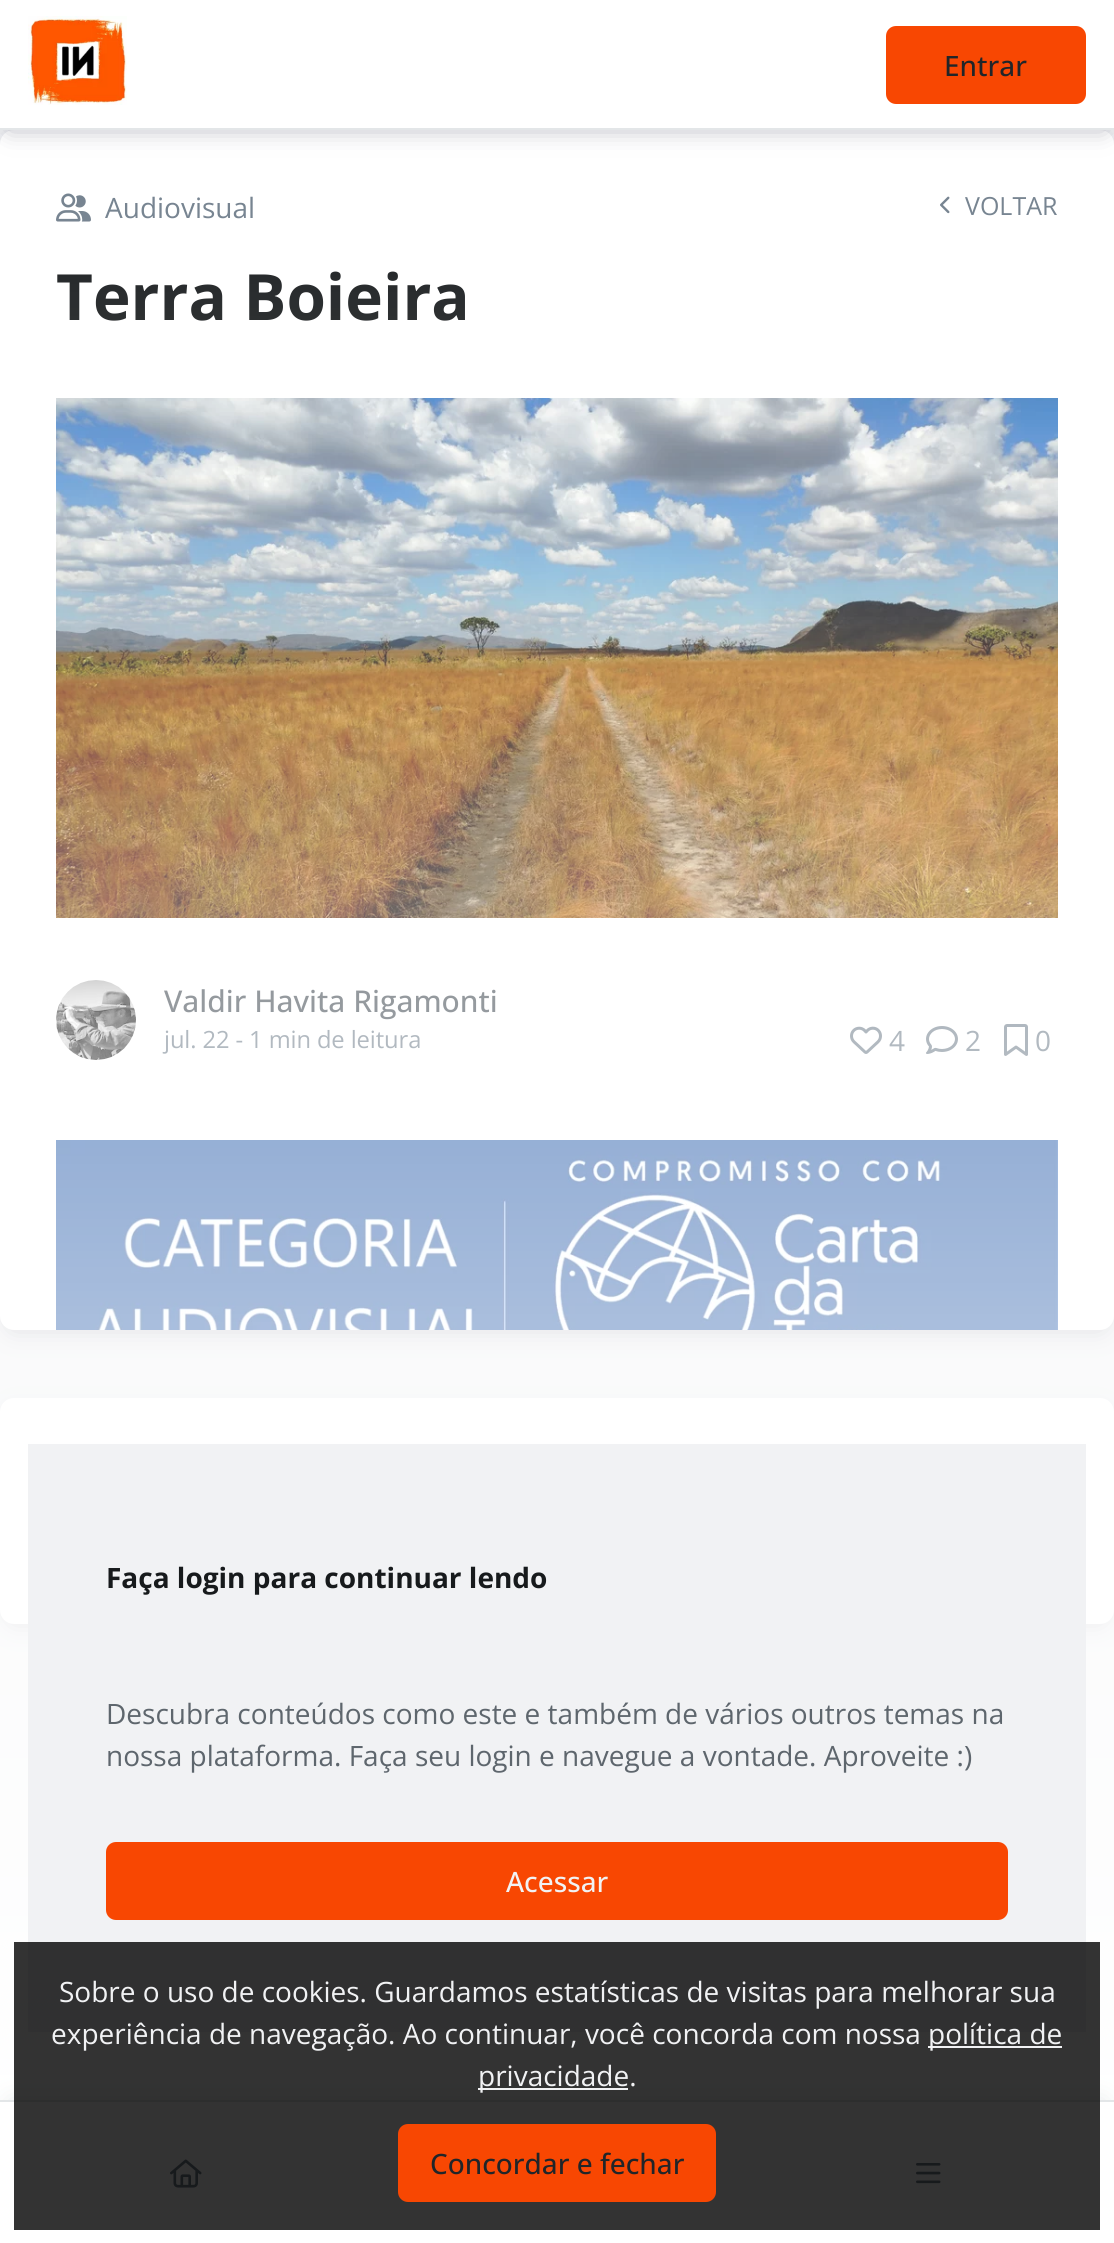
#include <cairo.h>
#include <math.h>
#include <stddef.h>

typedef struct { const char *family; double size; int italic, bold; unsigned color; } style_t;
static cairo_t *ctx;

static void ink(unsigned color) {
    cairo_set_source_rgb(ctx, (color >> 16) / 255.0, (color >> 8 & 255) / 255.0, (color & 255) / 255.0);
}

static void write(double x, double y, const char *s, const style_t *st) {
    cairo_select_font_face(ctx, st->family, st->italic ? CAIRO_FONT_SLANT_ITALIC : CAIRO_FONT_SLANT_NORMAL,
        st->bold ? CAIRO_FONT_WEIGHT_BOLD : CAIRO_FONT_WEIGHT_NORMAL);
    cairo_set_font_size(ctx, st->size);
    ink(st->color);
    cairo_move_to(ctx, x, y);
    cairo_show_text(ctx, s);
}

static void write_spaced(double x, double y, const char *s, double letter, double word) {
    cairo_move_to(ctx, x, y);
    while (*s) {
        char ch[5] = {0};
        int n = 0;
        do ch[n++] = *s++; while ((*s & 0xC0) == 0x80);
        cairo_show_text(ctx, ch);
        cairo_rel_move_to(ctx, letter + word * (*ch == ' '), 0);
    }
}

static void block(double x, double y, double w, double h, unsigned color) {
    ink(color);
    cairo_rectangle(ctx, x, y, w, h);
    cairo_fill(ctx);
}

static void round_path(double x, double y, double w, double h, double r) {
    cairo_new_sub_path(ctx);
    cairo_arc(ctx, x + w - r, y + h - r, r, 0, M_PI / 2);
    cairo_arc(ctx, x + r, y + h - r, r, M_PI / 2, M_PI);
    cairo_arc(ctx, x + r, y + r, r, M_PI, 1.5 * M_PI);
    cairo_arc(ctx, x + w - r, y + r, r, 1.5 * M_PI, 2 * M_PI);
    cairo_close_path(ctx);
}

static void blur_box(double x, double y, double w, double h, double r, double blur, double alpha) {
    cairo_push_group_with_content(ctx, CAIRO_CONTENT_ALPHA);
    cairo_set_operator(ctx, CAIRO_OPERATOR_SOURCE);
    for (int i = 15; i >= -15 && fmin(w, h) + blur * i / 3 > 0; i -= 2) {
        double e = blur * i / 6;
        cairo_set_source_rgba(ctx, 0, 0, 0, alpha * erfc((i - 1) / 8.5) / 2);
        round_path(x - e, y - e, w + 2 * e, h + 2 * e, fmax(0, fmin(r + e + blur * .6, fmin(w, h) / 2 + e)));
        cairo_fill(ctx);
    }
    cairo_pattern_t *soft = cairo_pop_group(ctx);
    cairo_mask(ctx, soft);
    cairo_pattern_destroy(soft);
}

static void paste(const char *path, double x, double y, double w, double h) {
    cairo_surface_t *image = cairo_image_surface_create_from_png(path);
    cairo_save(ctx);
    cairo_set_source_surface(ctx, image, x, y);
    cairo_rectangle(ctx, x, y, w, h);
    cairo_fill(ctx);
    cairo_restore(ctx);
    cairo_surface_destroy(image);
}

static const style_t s1 = {"Open Sans Medium", 28, 0, 0, 0x212529};
static const style_t s2 = {"Open Sans", 28, 0, 0, 0x72808d};
static const style_t s3 = {"Open Sans", 25, 0, 0, 0x72808d};
static const style_t s4 = {"Open Sans", 63.75, 0, 1, 0x171a1c};
static const style_t s5 = {"Open Sans Medium", 30, 0, 0, 0x444d55};
static const style_t s6 = {"Open Sans", 28, 0, 1, 0x171a1c};
static const style_t s7 = {"Open Sans", 28, 0, 0, 0x5e666d};
static const style_t s8 = {"Open Sans Medium", 28, 0, 0, 0xf1f2f4};
static const style_t s9 = {"Open Sans", 28, 0, 0, 0xf1f2f4};

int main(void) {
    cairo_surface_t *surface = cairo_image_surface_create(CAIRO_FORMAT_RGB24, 1114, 2243);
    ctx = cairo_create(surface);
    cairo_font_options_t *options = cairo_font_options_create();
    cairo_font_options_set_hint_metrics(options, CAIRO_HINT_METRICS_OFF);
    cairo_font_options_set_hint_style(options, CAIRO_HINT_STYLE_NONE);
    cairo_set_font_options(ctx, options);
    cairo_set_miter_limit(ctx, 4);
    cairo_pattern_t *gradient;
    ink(0xf1f2f4);
    cairo_paint(ctx);
    ink(0x646476);
    blur_box(10, 148, 1094, 1180, 4, 12, 0.5);
    ink(0xffffff);
    round_path(0, 130, 1114, 1200, 14);
    cairo_fill(ctx);
    ink(0x646476);
    blur_box(10, 18, 1094, 110, 0, 12, 0.5);
    block(0, 0, 1114, 128, 0xffffff);
    block(0, 128, 1114, 2, 0xe3e6e8);
    paste("pic1.png", 28, 16, 99, 89);
    ink(0xf84702);
    round_path(888, 28, 196, 74, 8);
    cairo_fill_preserve(ctx);
    cairo_set_line_width(ctx, 4);
    cairo_stroke(ctx);
    write(944, 76, "Entrar", &s1);
    paste("pic2.png", 56, 193, 35, 29);
    write(105, 218, "Audiovisual", &s2);
    paste("pic3.png", 940, 196, 10, 18);
    write(965, 215, "VOLTAR", &s3);
    write(56, 320, "Terra Boieira", &s4);
    paste("pic4.png", 56, 398, 1002, 520);
    paste("pic5.png", 56, 980, 80, 80);
    write(164, 1012, "Valdir Havita Rigamonti", &s5);
    cairo_select_font_face(ctx, "Open Sans", CAIRO_FONT_SLANT_NORMAL, CAIRO_FONT_WEIGHT_NORMAL);
    cairo_set_font_size(ctx, 23.75);
    ink(0x72808d);
    write_spaced(164, 1048, "jul. 22 - 1 min de leitura", -0.1, 0);
    paste("pic6.png", 850, 1026, 32, 28);
    write(889, 1051, "4", &s2);
    paste("pic7.png", 926, 1026, 32, 28);
    write(965, 1051, "2", &s2);
    paste("pic8.png", 1004, 1024, 24, 32);
    write(1035, 1051, "0", &s2);
    paste("pic9.png", 56, 1140, 1002, 190);
    ink(0x646476);
    blur_box(10, 1416, 1094, 206, 4, 12, 0.5);
    ink(0xffffff);
    round_path(0, 1398, 1114, 226, 14);
    cairo_fill(ctx);
    gradient = cairo_pattern_create_linear(557, 130, 557, 2150);
    cairo_pattern_add_color_stop_rgba(gradient, 0, 1, 1, 1, 0);
    cairo_pattern_add_color_stop_rgba(gradient, 1, 1, 1, 1, 1);
    cairo_set_source(ctx, gradient);
    cairo_pattern_destroy(gradient);
    cairo_rectangle(ctx, 0, 194, 1114, 1906);
    cairo_fill(ctx);
    block(28, 1444, 1058, 588, 0xf1f2f4);
    write(106, 1588, "Faça login para continuar lendo", &s6);
    write(106, 1724, "Descubra conteúdos como este e também de vários outros temas na", &s7);
    write(106, 1766, "nossa plataforma. Faça seu login e navegue a vontade. Aproveite :)", &s7);
    ink(0xf84702);
    round_path(108, 1844, 898, 74, 8);
    cairo_fill_preserve(ctx);
    cairo_stroke(ctx);
    write(506, 1892, "Acessar", &s8);
    ink(0xe3e6e8);
    blur_box(10, 2102, 1094, 124, 0, 12, 1);
    block(0, 2102, 1114, 141, 0xffffff);
    block(0, 2100, 1114, 2, 0xe3e6e8);
    paste("pic10.png", 170, 2159, 32, 29);
    paste("pic11.png", 916, 2163, 25, 21);
    cairo_set_source_rgba(ctx, 0, 0, 0, 0.8);
    cairo_rectangle(ctx, 14, 1942, 1086, 288);
    cairo_fill(ctx);
    write(59, 2002, "Sobre o uso de cookies. Guardamos estatísticas de visitas para melhorar sua", &s9);
    write(51, 2044, "experiência de navegação. Ao continuar, você concorda com nossa", &s9);
    block(928, 2046, 134, 2, 0xf1f2f4);
    write(928, 2044, "política de", &s9);
    block(478, 2088, 150, 2, 0xf1f2f4);
    write(478, 2086, "privacidade.", &s9);
    ink(0xf84702);
    round_path(400, 2126, 314, 74, 8);
    cairo_fill_preserve(ctx);
    cairo_stroke(ctx);
    write(430, 2174, "Concordar e fechar", &s1);
    cairo_surface_write_to_png(surface, "screenshot.png");
    cairo_font_options_destroy(options);
    cairo_destroy(ctx);
    cairo_surface_destroy(surface);
    return 0;
}
